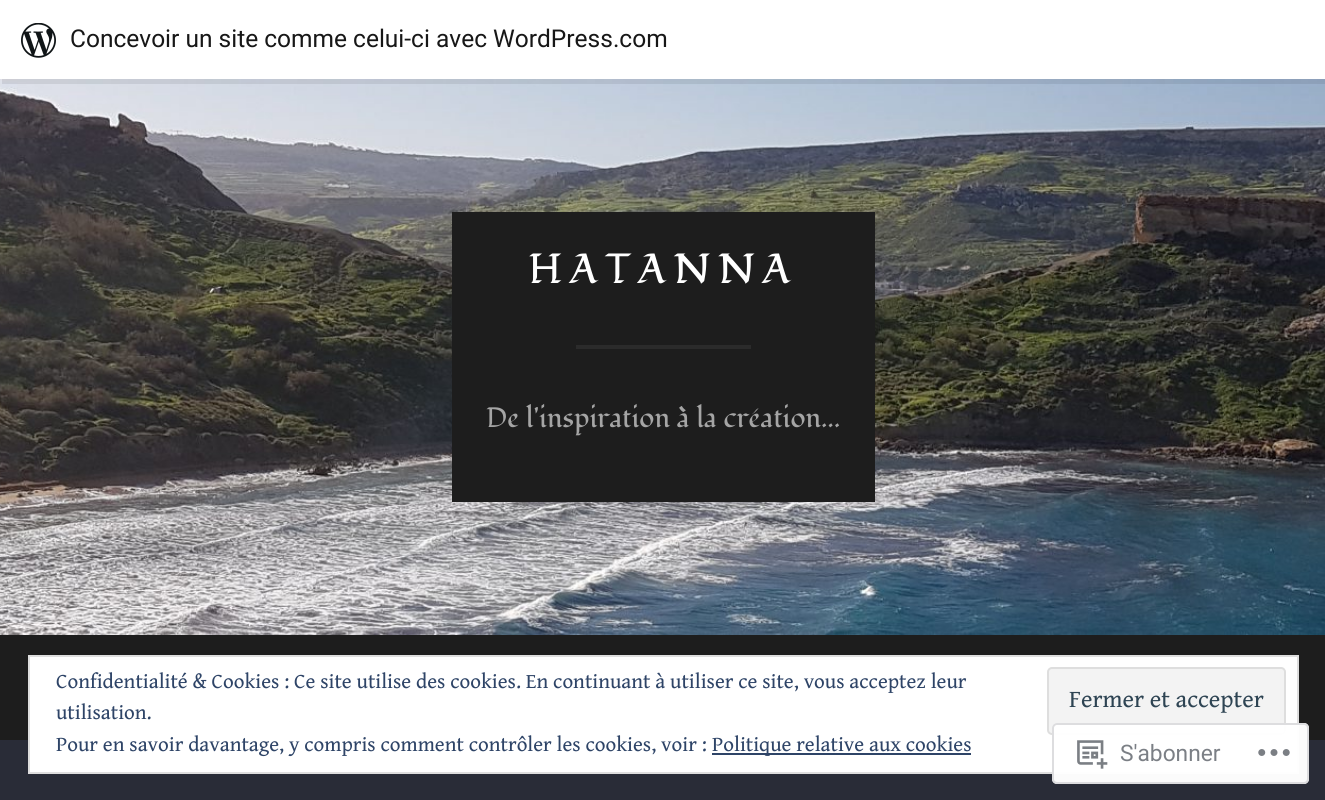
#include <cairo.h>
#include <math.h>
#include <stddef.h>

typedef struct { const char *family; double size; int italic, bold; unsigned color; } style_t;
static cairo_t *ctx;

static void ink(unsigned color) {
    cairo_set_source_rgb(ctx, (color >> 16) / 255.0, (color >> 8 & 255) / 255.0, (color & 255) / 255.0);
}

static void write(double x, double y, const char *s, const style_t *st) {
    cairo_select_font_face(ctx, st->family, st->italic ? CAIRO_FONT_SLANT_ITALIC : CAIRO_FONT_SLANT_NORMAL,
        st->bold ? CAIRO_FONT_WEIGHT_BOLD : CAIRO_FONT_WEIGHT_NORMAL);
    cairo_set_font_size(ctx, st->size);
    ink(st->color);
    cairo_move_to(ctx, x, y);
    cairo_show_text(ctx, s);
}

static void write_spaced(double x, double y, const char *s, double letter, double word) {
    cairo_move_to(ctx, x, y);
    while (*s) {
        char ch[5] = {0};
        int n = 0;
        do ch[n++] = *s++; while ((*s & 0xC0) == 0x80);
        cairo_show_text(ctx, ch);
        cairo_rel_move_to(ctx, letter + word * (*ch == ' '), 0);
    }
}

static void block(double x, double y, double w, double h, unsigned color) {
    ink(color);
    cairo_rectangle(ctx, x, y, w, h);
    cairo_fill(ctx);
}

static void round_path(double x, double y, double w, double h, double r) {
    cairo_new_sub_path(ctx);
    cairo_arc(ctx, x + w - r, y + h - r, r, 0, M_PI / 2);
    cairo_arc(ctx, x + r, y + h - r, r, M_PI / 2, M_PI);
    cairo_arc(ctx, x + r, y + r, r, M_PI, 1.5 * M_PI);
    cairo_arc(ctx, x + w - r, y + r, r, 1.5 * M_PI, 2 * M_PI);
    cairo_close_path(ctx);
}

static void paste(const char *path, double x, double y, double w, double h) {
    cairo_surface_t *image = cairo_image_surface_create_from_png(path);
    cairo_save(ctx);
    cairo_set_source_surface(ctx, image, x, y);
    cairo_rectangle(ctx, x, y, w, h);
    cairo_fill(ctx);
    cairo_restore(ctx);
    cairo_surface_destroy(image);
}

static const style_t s1 = {"Roboto", 24.5, 0, 0, 0x171717};
static const style_t s2 = {"Fondamento", 28, 0, 0, 0xa5a5a5};
static const style_t s3 = {"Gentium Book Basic", 21, 0, 0, 0x2e4467};
static const style_t s4 = {"Gentium Book Basic", 24.5, 0, 0, 0x2e4453};
static const style_t s5 = {"Roboto", 22.75, 0, 0, 0x7b7f85};

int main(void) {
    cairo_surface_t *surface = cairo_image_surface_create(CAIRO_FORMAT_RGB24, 1325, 800);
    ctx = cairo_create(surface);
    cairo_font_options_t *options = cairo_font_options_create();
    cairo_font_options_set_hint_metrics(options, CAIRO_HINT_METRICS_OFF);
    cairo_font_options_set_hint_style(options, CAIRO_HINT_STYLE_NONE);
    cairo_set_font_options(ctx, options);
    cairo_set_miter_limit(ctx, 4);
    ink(0x292c37);
    cairo_paint(ctx);
    paste("pic2.png", 0, 79, 1325, 556);
    cairo_set_source_rgba(ctx, 0, 0, 0, 0.08);
    cairo_new_path(ctx);
    cairo_move_to(ctx, 2, 79);
    cairo_line_to(ctx, 2, 84);
    cairo_line_to(ctx, 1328, 84);
    cairo_line_to(ctx, 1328, 5);
    cairo_line_to(ctx, 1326, 5);
    cairo_line_to(ctx, 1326, 79);
    cairo_close_path(ctx);
    cairo_fill(ctx);
    block(0, 0, 1325, 79, 0xffffff);
    paste("pic1.png", 21, 23, 35, 35);
    write(70, 47, "Concevoir un site comme celui-ci avec WordPress.com", &s1);
    block(452, 212, 423, 290, 0x1d1d1d);
    cairo_select_font_face(ctx, "Fondamento", CAIRO_FONT_SLANT_NORMAL, CAIRO_FONT_WEIGHT_NORMAL);
    cairo_set_font_size(ctx, 42);
    ink(0xffffff);
    write_spaced(528, 283, "HATANNA", 7, 0);
    block(576, 345, 175, 4, 0x2b2b2b);
    write(486, 427, "De l'inspiration à la création…", &s2);
    block(0, 635, 1325, 105, 0x1d1d1d);
    ink(0xffffff);
    cairo_rectangle(ctx, 29, 656, 1269, 117);
    cairo_fill_preserve(ctx);
    ink(0xdedede);
    cairo_stroke(ctx);
    write(56, 688, "Confidentialité & Cookies : Ce site utilise des cookies. En continuant à utiliser ce site, vous acceptez leur", &s3);
    write(56, 719, "utilisation.", &s3);
    ink(0xf3f3f3);
    round_path(1048, 668, 237, 66, 4);
    cairo_fill_preserve(ctx);
    ink(0xdedede);
    cairo_stroke(ctx);
    write(1069, 707, "Fermer et accepter", &s4);
    write(56, 751, "Pour en savoir davantage, y compris comment contrôler les cookies, voir :", &s3);
    block(712, 753, 259, 2, 0x2e4467);
    write(712, 751, "Politique relative aux cookies", &s3);
    cairo_set_source_rgba(ctx, 1, 1, 1, 0.98);
    round_path(1052, 723, 257, 61, 5);
    cairo_fill(ctx);
    round_path(1053, 724, 255, 59, 4);
    cairo_set_source_rgba(ctx, 0.863, 0.863, 0.871, 0.98);
    cairo_stroke(ctx);
    paste("pic3.png", 1077, 740, 31, 29);
    write(1120, 761, "S'abonner", &s5);
    paste("pic4.png", 1258, 749, 32, 7);
    cairo_surface_write_to_png(surface, "screenshot.png");
    cairo_font_options_destroy(options);
    cairo_destroy(ctx);
    cairo_surface_destroy(surface);
    return 0;
}
